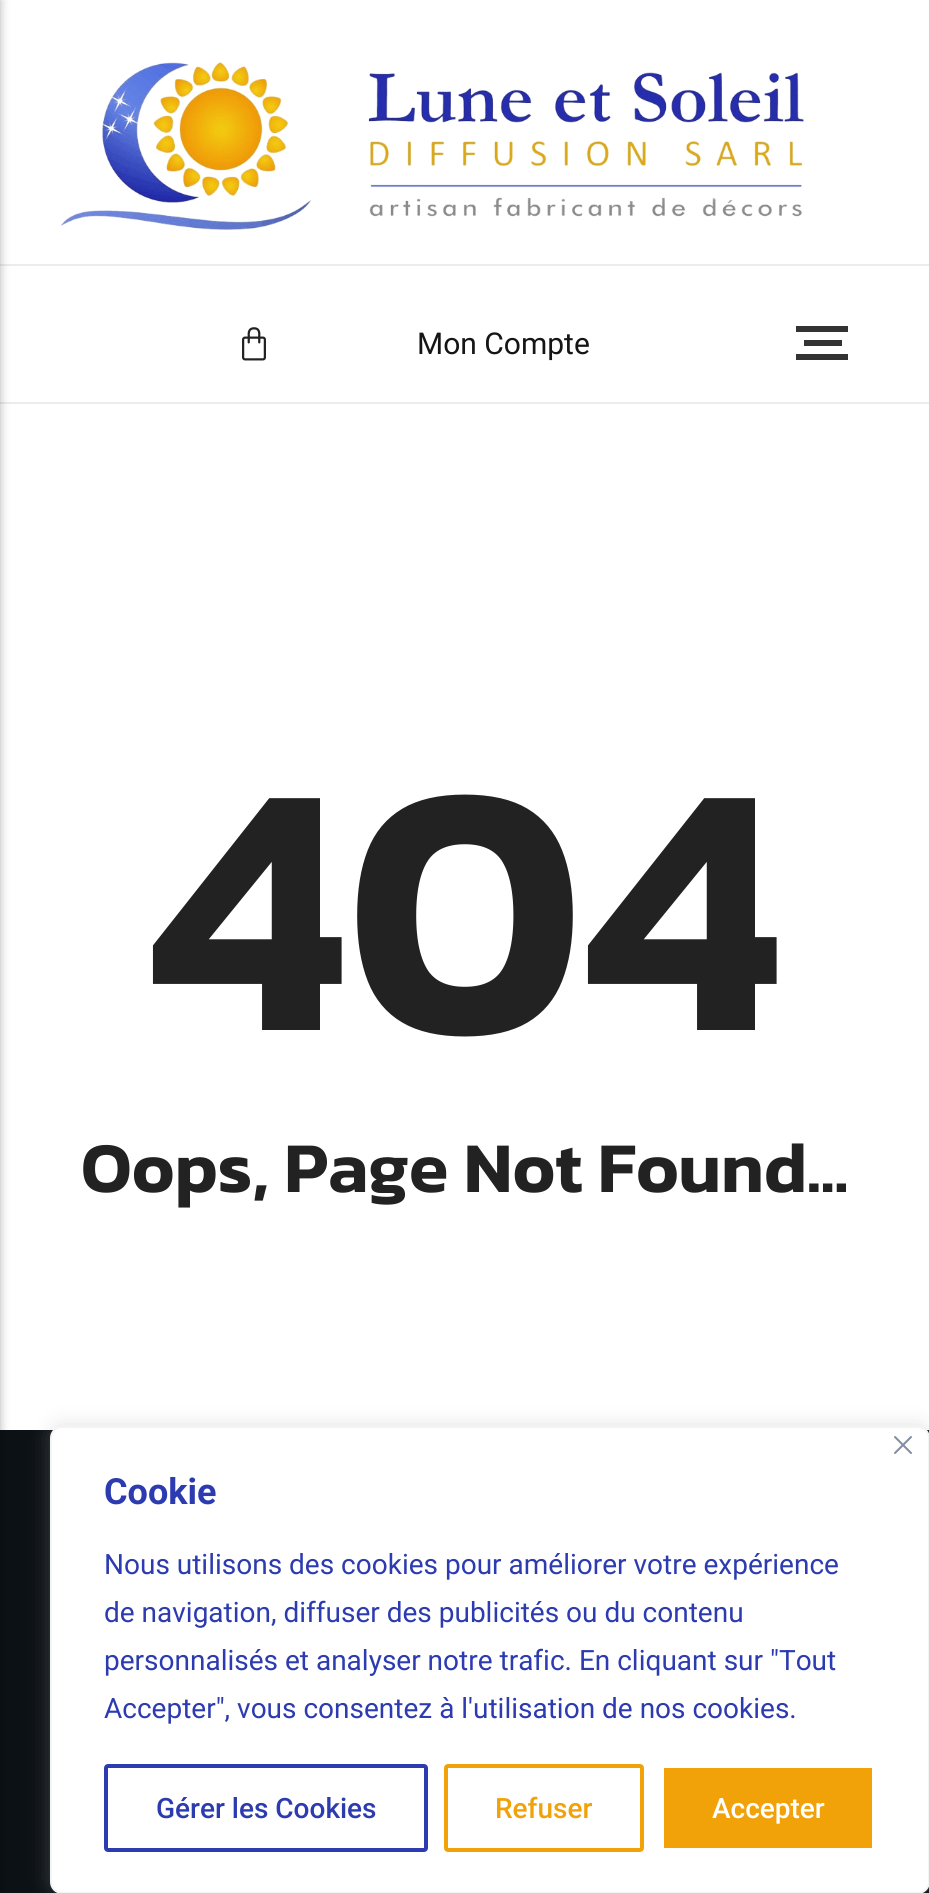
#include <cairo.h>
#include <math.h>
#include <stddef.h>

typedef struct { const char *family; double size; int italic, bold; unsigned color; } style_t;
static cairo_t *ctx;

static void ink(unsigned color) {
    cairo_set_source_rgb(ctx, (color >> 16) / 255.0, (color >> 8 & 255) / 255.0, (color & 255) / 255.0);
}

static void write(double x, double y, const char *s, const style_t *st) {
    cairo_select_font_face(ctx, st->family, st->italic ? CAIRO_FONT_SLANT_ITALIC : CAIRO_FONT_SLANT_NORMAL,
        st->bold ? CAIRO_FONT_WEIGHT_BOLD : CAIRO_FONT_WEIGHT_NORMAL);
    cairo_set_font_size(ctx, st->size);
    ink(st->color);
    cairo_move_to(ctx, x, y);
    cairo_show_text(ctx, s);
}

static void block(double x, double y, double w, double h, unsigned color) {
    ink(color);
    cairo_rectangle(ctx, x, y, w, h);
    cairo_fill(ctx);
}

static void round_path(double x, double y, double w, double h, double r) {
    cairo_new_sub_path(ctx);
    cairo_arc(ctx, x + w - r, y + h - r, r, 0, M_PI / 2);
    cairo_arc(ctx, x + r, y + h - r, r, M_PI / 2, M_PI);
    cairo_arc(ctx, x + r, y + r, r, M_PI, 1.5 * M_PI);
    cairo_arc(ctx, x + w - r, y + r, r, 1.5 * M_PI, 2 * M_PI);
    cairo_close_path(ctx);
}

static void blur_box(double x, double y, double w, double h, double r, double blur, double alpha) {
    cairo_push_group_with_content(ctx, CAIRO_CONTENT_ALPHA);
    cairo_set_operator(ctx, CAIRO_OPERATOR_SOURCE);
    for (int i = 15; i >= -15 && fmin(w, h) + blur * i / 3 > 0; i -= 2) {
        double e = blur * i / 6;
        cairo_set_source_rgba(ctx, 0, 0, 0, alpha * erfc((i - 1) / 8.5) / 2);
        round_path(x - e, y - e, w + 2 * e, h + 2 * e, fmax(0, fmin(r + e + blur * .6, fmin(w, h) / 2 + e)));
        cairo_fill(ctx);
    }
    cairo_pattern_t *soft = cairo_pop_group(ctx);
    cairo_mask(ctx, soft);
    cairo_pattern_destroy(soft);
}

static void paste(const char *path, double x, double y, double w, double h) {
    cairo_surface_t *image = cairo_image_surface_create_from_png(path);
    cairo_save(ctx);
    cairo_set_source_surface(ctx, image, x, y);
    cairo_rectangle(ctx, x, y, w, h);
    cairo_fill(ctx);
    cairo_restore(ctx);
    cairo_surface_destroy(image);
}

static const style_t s1 = {"Roboto", 30, 0, 0, 0x151515};
static const style_t s2 = {"Kanit SemiBold", 360, 0, 0, 0x222222};
static const style_t s3 = {"Kanit SemiBold", 72, 0, 0, 0x222222};
static const style_t s4 = {"Roboto", 36, 0, 1, 0x2c3baf};
static const style_t s5 = {"Roboto", 28, 0, 0, 0x2c3baf};
static const style_t s6 = {"Roboto Medium", 28, 0, 0, 0x2c3baf};
static const style_t s7 = {"Roboto Medium", 28, 0, 0, 0xf1a209};
static const style_t s8 = {"Roboto Medium", 28, 0, 0, 0xffffff};

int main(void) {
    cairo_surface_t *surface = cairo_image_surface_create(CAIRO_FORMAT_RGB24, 929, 1893);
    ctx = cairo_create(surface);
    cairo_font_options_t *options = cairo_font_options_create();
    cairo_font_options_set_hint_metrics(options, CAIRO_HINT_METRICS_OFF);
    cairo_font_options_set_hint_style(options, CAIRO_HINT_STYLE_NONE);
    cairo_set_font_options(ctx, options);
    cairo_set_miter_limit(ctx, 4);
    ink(0xffffff);
    cairo_paint(ctx);
    block(0, 264, 929, 2, 0xececec);
    paste("pic1.png", 60, 62, 744, 168);
    block(0, 402, 929, 2, 0xececec);
    block(0, 1430, 929, 463, 0x0c1115);
    ink(0x000000);
    blur_box(-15, 0, 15, 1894, 0, 5, 0.3);
    block(796, 326, 52, 6, 0x333333);
    block(804, 340, 38, 6, 0x333333);
    block(796, 354, 52, 6, 0x333333);
    paste("pic2.png", 242, 327, 24, 34);
    write(417, 354, "Mon Compte", &s1);
    write(149, 1030, "404", &s2);
    write(81, 1192, "Oops, Page Not Found...", &s3);
    ink(0xacabab);
    blur_box(50, 1424, 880, 468, 12, 10, 0.3);
    ink(0xffffff);
    round_path(51, 1427, 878, 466, 11);
    cairo_fill_preserve(ctx);
    ink(0xf4f4f4);
    cairo_stroke(ctx);
    paste("pic3.png", 894, 1436, 18, 18);
    write(104, 1504, "Cookie", &s4);
    write(104, 1574, "Nous utilisons des cookies pour améliorer votre expérience", &s5);
    write(104, 1622, "de navigation, diffuser des publicités ou du contenu", &s5);
    write(104, 1670, "personnalisés et analyser notre trafic. En cliquant sur \"Tout", &s5);
    write(104, 1718, "Accepter\", vous consentez à l'utilisation de nos cookies.", &s5);
    round_path(106, 1766, 320, 84, 2);
    cairo_set_line_width(ctx, 4);
    cairo_stroke(ctx);
    write(156, 1818, "Gérer les Cookies", &s6);
    round_path(446, 1766, 196, 84, 2);
    ink(0xf1a209);
    cairo_stroke(ctx);
    write(495, 1818, "Refuser", &s7);
    round_path(662, 1766, 212, 84, 2);
    cairo_fill_preserve(ctx);
    ink(0xffffff);
    cairo_stroke(ctx);
    write(712, 1818, "Accepter", &s8);
    cairo_surface_write_to_png(surface, "screenshot.png");
    cairo_font_options_destroy(options);
    cairo_destroy(ctx);
    cairo_surface_destroy(surface);
    return 0;
}
